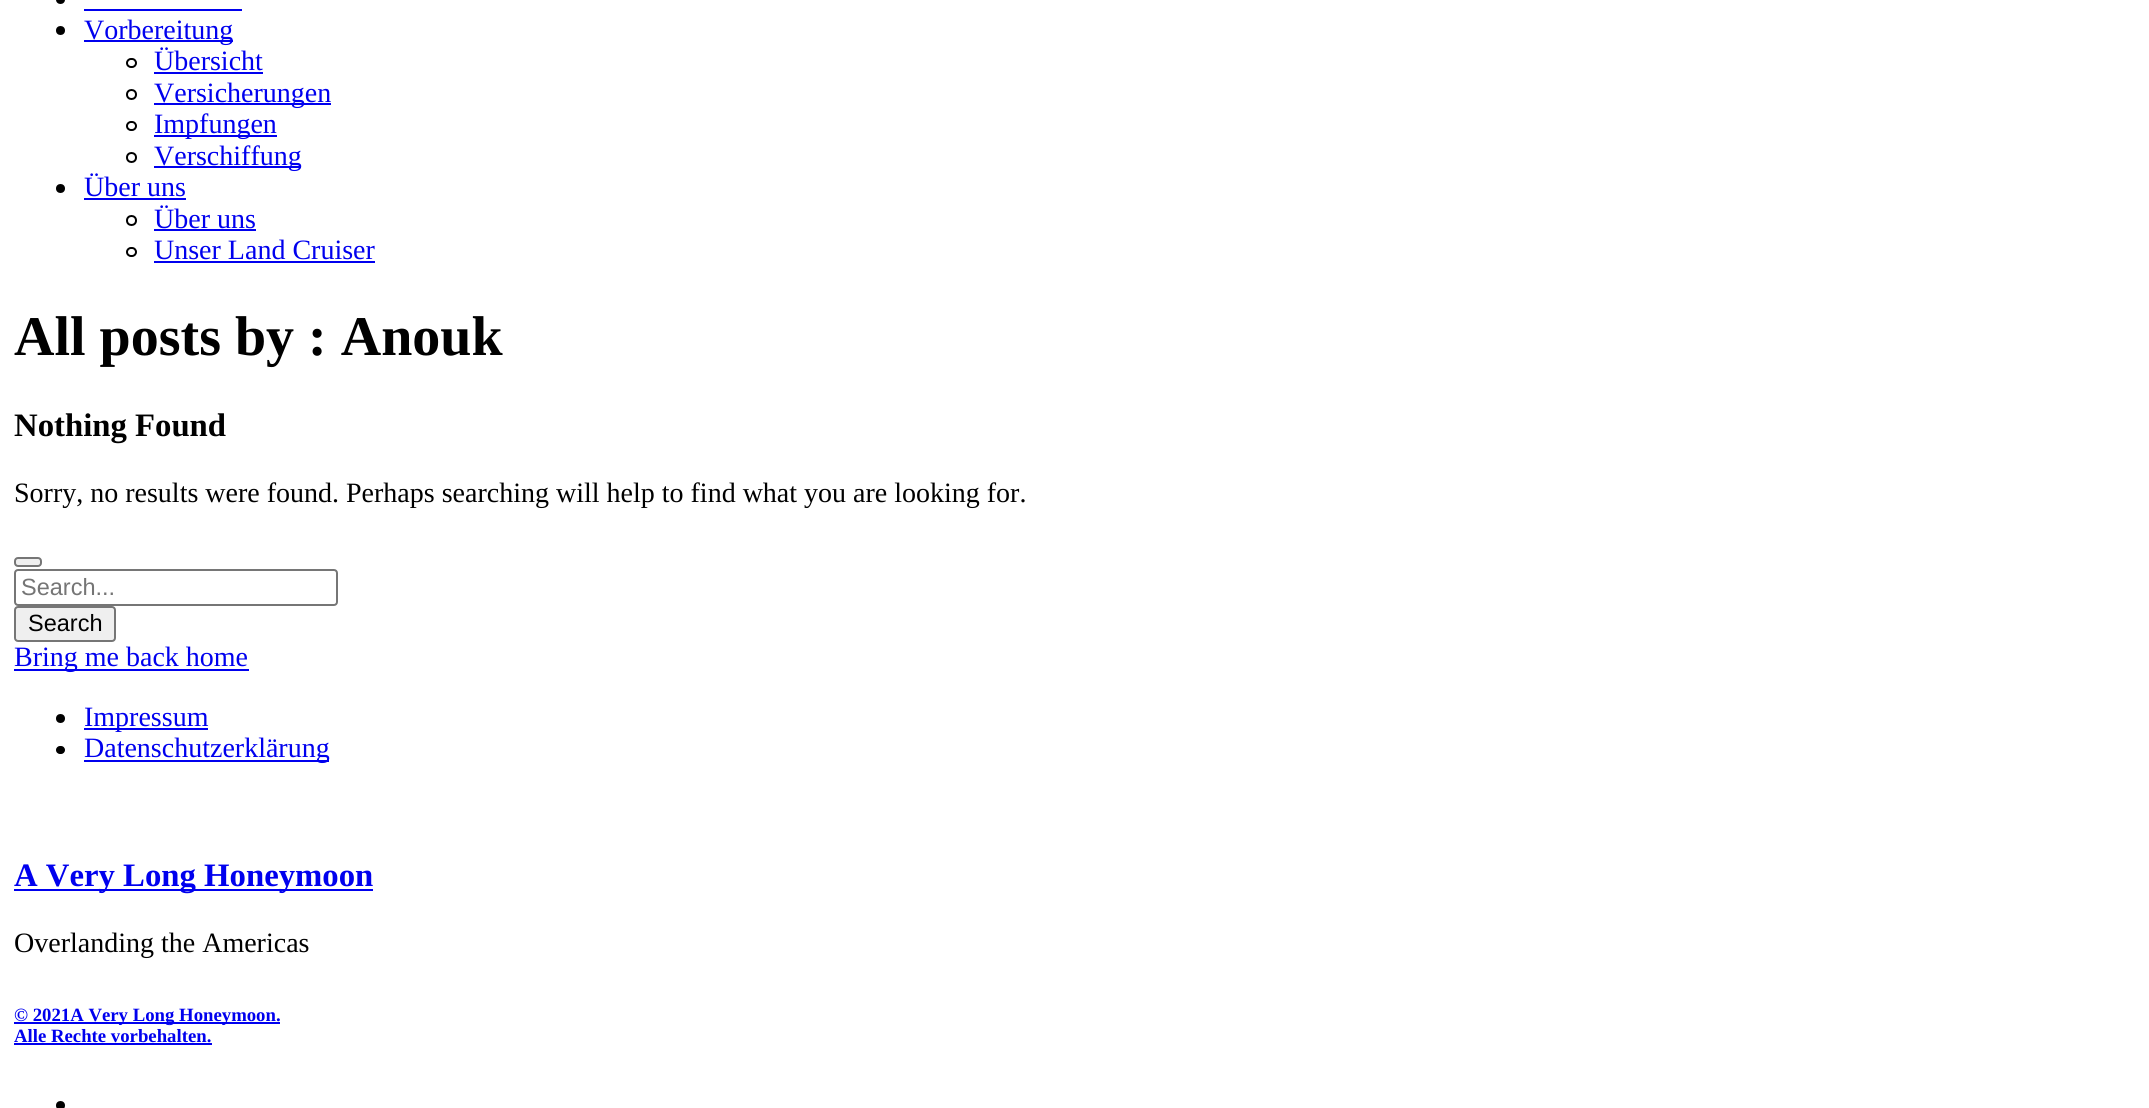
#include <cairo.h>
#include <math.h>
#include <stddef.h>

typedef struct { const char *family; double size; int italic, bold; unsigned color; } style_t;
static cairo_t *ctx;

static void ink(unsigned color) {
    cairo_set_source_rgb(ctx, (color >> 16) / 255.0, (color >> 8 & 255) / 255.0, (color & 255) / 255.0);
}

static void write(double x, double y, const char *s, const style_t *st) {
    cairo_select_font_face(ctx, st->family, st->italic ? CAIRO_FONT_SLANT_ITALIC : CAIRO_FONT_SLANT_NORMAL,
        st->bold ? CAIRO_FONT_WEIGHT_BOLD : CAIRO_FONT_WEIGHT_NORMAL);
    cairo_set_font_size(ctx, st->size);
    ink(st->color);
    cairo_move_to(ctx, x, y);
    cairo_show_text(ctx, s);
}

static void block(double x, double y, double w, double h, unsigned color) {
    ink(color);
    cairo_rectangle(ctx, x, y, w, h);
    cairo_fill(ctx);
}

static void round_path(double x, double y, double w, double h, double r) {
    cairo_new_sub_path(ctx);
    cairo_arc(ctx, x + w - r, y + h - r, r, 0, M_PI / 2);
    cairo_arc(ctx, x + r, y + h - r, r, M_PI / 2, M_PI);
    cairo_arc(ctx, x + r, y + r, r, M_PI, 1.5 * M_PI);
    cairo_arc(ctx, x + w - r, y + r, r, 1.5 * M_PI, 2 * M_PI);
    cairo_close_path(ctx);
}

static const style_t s1 = {"Liberation Serif", 28, 0, 0, 0x0000ee};
static const style_t s2 = {"Liberation Serif", 56, 0, 1, 0x000000};
static const style_t s3 = {"Liberation Serif", 32.75, 0, 1, 0x000000};
static const style_t s4 = {"Liberation Serif", 28, 0, 0, 0x000000};
static const style_t s5 = {"Liberation Sans", 23.5, 0, 0, 0x757575};
static const style_t s6 = {"Liberation Sans", 23.5, 0, 0, 0x000000};
static const style_t s7 = {"Liberation Serif", 32.75, 0, 1, 0x0000ee};
static const style_t s8 = {"Liberation Serif", 18.75, 0, 1, 0x0000ee};

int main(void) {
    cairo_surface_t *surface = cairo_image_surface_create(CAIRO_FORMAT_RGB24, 2149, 1108);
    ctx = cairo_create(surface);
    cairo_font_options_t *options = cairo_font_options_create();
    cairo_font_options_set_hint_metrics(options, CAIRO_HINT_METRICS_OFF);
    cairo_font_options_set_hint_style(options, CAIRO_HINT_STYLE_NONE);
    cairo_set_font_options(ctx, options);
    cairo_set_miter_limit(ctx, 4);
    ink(0xffffff);
    cairo_paint(ctx);
    ink(0x000000);
    cairo_arc(ctx, 60.5, -0.5, 4.5, 0, 2 * M_PI);
    cairo_fill(ctx);
    block(84, 9, 158, 2, 0x0000ee);
    ink(0x000000);
    cairo_arc(ctx, 60.5, 30.5, 4.5, 0, 2 * M_PI);
    cairo_fill(ctx);
    block(84, 40, 149, 2, 0x0000ee);
    write(84, 39, "Vorbereitung", &s1);
    round_path(127, 59, 9, 8, 4);
    ink(0x000000);
    cairo_stroke(ctx);
    write(154, 70, "Übersicht", &s1);
    block(154, 72, 109, 2, 0x0000ee);
    cairo_new_path(ctx);
    cairo_arc(ctx, 131.5, 94.5, 4.5, 0, 2 * M_PI);
    ink(0x000000);
    cairo_stroke(ctx);
    block(154, 103, 177, 2, 0x0000ee);
    write(154, 102, "Versicherungen", &s1);
    round_path(127, 122, 9, 8, 4);
    ink(0x000000);
    cairo_stroke(ctx);
    block(154, 135, 123, 2, 0x0000ee);
    write(154, 133, "Impfungen", &s1);
    cairo_new_path(ctx);
    cairo_arc(ctx, 131.5, 157.5, 4.5, 0, 2 * M_PI);
    ink(0x000000);
    cairo_stroke(ctx);
    block(154, 166, 147, 2, 0x0000ee);
    write(154, 165, "Verschiffung", &s1);
    ink(0x000000);
    cairo_new_path(ctx);
    cairo_arc(ctx, 60.5, 188.5, 4.5, 0, 2 * M_PI);
    cairo_fill(ctx);
    write(84, 196, "Über uns", &s1);
    block(84, 198, 102, 2, 0x0000ee);
    cairo_new_path(ctx);
    cairo_arc(ctx, 131.5, 220.5, 4.5, 0, 2 * M_PI);
    ink(0x000000);
    cairo_stroke(ctx);
    write(154, 228, "Über uns", &s1);
    block(154, 229, 102, 2, 0x0000ee);
    round_path(127, 248, 9, 8, 4);
    ink(0x000000);
    cairo_stroke(ctx);
    write(154, 259, "Unser Land Cruiser", &s1);
    block(154, 261, 221, 2, 0x0000ee);
    write(14, 355, "All posts by : Anouk", &s2);
    write(14, 436, "Nothing Found", &s3);
    write(14, 502, "Sorry, no results were found. Perhaps searching will help to find what you are looking for.", &s4);
    ink(0xefefef);
    round_path(15, 558, 26, 8, 3);
    cairo_fill_preserve(ctx);
    ink(0x767676);
    cairo_stroke(ctx);
    round_path(15, 570, 322, 35, 3);
    cairo_stroke(ctx);
    write(21, 595, "Search...", &s5);
    ink(0xefefef);
    round_path(15, 607, 100, 34, 3);
    cairo_fill_preserve(ctx);
    ink(0x767676);
    cairo_stroke(ctx);
    write(28, 631, "Search", &s6);
    block(14, 669, 235, 2, 0x0000ee);
    write(14, 666, "Bring me back home", &s1);
    ink(0x000000);
    cairo_new_path(ctx);
    cairo_arc(ctx, 60.5, 718.5, 4.5, 0, 2 * M_PI);
    cairo_fill(ctx);
    block(84, 728, 124, 2, 0x0000ee);
    write(84, 726, "Impressum", &s1);
    ink(0x000000);
    round_path(56, 746, 9, 8, 4);
    cairo_fill(ctx);
    block(84, 760, 245, 2, 0x0000ee);
    write(84, 757, "Datenschutzerklärung", &s1);
    block(14, 889, 359, 2, 0x0000ee);
    write(14, 886, "A Very Long Honeymoon", &s7);
    write(14, 952, "Overlanding the Americas", &s4);
    block(14, 1022, 266, 2, 0x0000ee);
    write(14, 1021, "© 2021A Very Long Honeymoon.", &s8);
    write(14, 1042, "Alle Rechte vorbehalten.", &s8);
    block(14, 1043, 198, 2, 0x0000ee);
    ink(0x000000);
    cairo_new_path(ctx);
    cairo_arc(ctx, 60.5, 1105.5, 4.5, 0, 2 * M_PI);
    cairo_fill(ctx);
    cairo_surface_write_to_png(surface, "screenshot.png");
    cairo_font_options_destroy(options);
    cairo_destroy(ctx);
    cairo_surface_destroy(surface);
    return 0;
}
